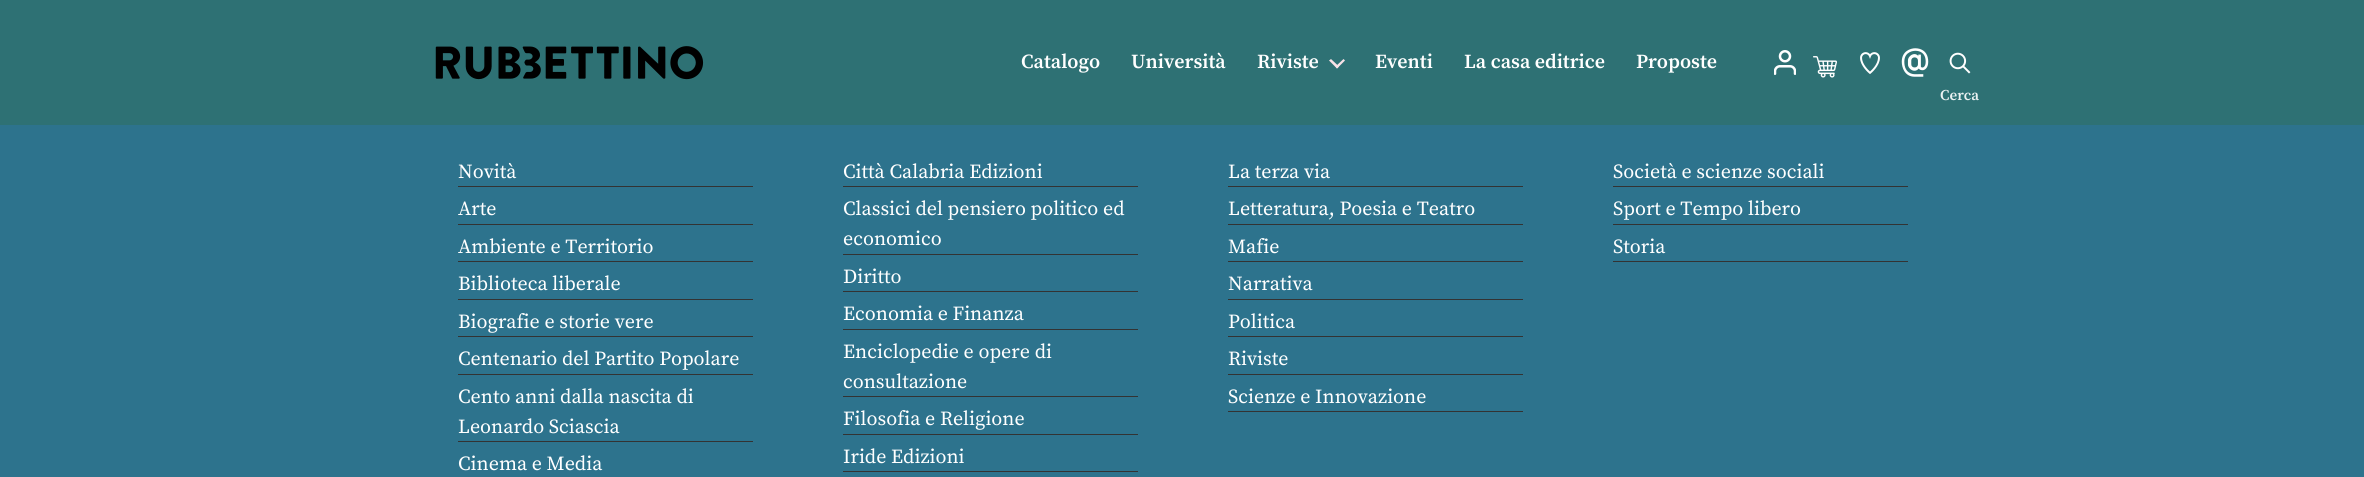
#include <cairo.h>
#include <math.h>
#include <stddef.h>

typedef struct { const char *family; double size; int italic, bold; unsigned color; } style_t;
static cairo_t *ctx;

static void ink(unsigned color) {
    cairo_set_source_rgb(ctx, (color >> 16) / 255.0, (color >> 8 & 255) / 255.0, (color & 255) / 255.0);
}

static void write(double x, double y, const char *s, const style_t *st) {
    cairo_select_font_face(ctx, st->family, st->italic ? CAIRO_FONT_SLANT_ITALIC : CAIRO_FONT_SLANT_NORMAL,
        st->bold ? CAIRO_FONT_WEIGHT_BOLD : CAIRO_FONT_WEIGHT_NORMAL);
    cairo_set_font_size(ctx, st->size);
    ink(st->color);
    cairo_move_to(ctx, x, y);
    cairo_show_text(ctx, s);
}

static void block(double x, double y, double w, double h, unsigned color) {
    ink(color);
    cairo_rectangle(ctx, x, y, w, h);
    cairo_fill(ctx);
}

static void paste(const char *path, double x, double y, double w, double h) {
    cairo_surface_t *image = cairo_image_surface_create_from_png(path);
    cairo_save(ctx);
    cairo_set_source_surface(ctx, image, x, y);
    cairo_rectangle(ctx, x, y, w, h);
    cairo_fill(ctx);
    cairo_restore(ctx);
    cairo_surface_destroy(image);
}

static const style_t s1 = {"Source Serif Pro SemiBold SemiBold", 20, 0, 0, 0xffffff};
static const style_t s2 = {"Source Serif Pro SemiBold SemiBold", 15, 0, 0, 0xecf2f2};
static const style_t s3 = {"Source Serif Pro", 20, 0, 0, 0xffffff};

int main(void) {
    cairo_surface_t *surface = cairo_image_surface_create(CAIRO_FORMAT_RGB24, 2364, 477);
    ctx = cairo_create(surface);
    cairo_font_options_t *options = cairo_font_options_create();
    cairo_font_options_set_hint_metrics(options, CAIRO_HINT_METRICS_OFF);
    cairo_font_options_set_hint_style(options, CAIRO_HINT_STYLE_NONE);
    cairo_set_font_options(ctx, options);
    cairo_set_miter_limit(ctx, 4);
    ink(0x2d738d);
    cairo_paint(ctx);
    block(0, 0, 2364, 125, 0x2e7174);
    paste("pic1.png", 435, 46, 269, 34);
    write(1021, 68, "Catalogo", &s1);
    write(1131, 68, "Università", &s1);
    write(1257, 68, "Riviste", &s1);
    ink(0xf8e2e7);
    cairo_new_path(ctx);
    cairo_move_to(ctx, 1329, 60.5);
    cairo_line_to(ctx, 1331, 59);
    cairo_line_to(ctx, 1339, 66.5);
    cairo_line_to(ctx, 1337, 68.5);
    cairo_close_path(ctx);
    cairo_fill(ctx);
    cairo_new_path(ctx);
    cairo_move_to(ctx, 1335.5, 66.5);
    cairo_line_to(ctx, 1343.5, 59);
    cairo_line_to(ctx, 1345, 60.5);
    cairo_line_to(ctx, 1337, 68.5);
    cairo_close_path(ctx);
    cairo_fill(ctx);
    write(1375, 68, "Eventi", &s1);
    write(1464, 68, "La casa editrice", &s1);
    write(1636, 68, "Proposte", &s1);
    paste("pic2.png", 1774, 50, 22, 25);
    paste("pic3.png", 1813, 56, 24, 22);
    paste("pic4.png", 1860, 52, 20, 22);
    paste("pic5.png", 1901, 48, 28, 29);
    paste("pic6.png", 1949, 52, 22, 22);
    write(1940, 100, "Cerca", &s2);
    block(458, 186, 295, 1, 0x333333);
    write(458, 178, "Novità", &s3);
    block(458, 224, 295, 1, 0x333333);
    write(458, 215, "Arte", &s3);
    block(458, 261, 295, 1, 0x333333);
    write(458, 253, "Ambiente e Territorio", &s3);
    block(458, 299, 295, 1, 0x333333);
    write(458, 290, "Biblioteca liberale", &s3);
    block(458, 336, 295, 1, 0x333333);
    write(458, 328, "Biografie e storie vere", &s3);
    block(458, 374, 295, 1, 0x333333);
    write(458, 365, "Centenario del Partito Popolare", &s3);
    block(458, 441, 295, 1, 0x333333);
    write(458, 403, "Cento anni dalla nascita di", &s3);
    write(458, 433, "Leonardo Sciascia", &s3);
    write(458, 470, "Cinema e Media", &s3);
    block(843, 186, 295, 1, 0x333333);
    write(843, 178, "Città Calabria Edizioni", &s3);
    block(843, 254, 295, 1, 0x333333);
    write(843, 215, "Classici del pensiero politico ed", &s3);
    write(843, 245, "economico", &s3);
    block(843, 291, 295, 1, 0x333333);
    write(843, 283, "Diritto", &s3);
    block(843, 329, 295, 1, 0x333333);
    write(843, 320, "Economia e Finanza", &s3);
    block(843, 396, 295, 1, 0x333333);
    write(843, 358, "Enciclopedie e opere di", &s3);
    write(843, 388, "consultazione", &s3);
    block(843, 434, 295, 1, 0x333333);
    write(843, 425, "Filosofia e Religione", &s3);
    block(843, 471, 295, 1, 0x333333);
    write(843, 463, "Iride Edizioni", &s3);
    block(1228, 186, 295, 1, 0x333333);
    write(1228, 178, "La terza via", &s3);
    block(1228, 224, 295, 1, 0x333333);
    write(1228, 215, "Letteratura, Poesia e Teatro", &s3);
    block(1228, 261, 295, 1, 0x333333);
    write(1228, 253, "Mafie", &s3);
    block(1228, 299, 295, 1, 0x333333);
    write(1228, 290, "Narrativa", &s3);
    block(1228, 336, 295, 1, 0x333333);
    write(1228, 328, "Politica", &s3);
    block(1228, 374, 295, 1, 0x333333);
    write(1228, 365, "Riviste", &s3);
    block(1228, 411, 295, 1, 0x333333);
    write(1228, 403, "Scienze e Innovazione", &s3);
    block(1613, 186, 295, 1, 0x333333);
    write(1613, 178, "Società e scienze sociali", &s3);
    block(1613, 224, 295, 1, 0x333333);
    write(1613, 215, "Sport e Tempo libero", &s3);
    block(1613, 261, 295, 1, 0x333333);
    write(1613, 253, "Storia", &s3);
    cairo_surface_write_to_png(surface, "screenshot.png");
    cairo_font_options_destroy(options);
    cairo_destroy(ctx);
    cairo_surface_destroy(surface);
    return 0;
}
